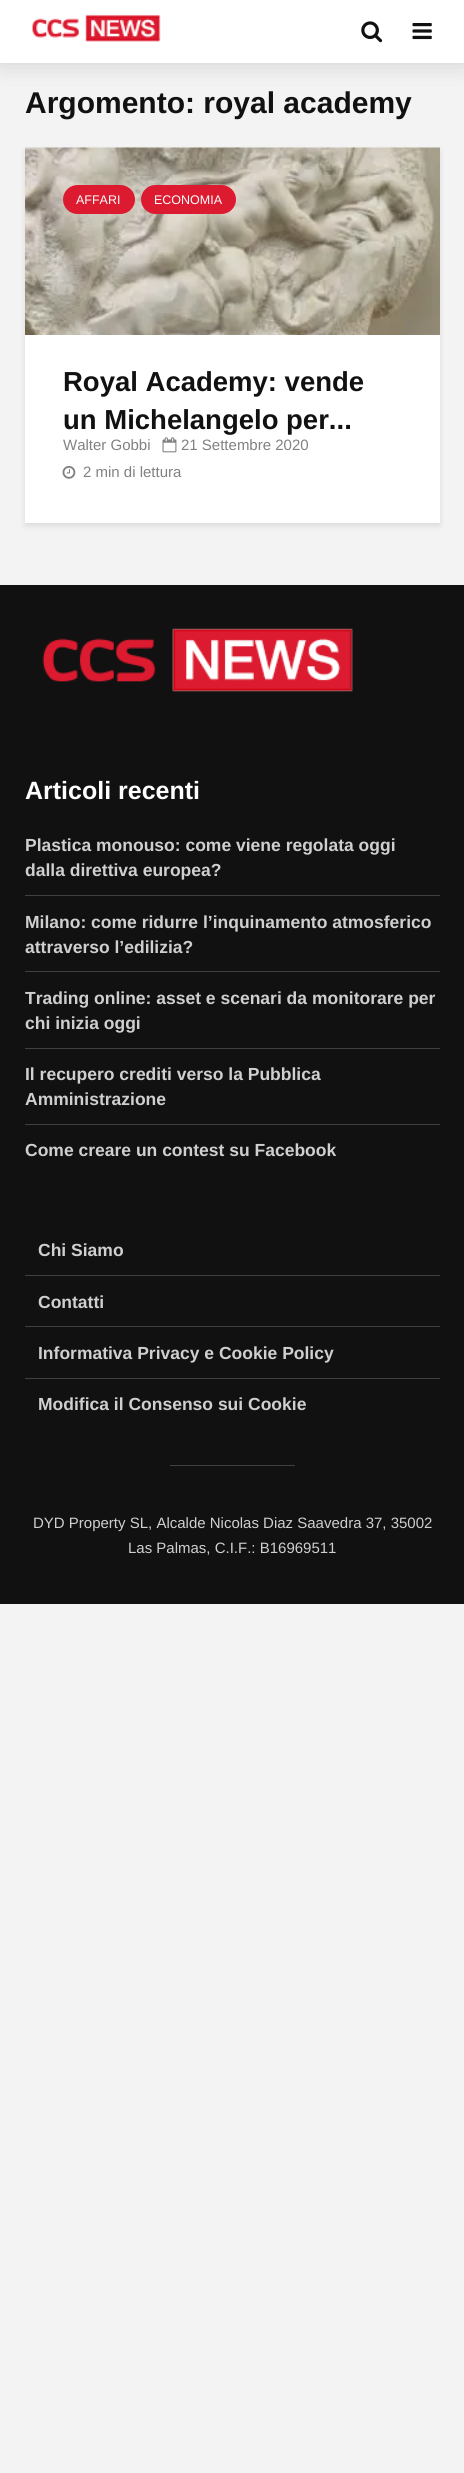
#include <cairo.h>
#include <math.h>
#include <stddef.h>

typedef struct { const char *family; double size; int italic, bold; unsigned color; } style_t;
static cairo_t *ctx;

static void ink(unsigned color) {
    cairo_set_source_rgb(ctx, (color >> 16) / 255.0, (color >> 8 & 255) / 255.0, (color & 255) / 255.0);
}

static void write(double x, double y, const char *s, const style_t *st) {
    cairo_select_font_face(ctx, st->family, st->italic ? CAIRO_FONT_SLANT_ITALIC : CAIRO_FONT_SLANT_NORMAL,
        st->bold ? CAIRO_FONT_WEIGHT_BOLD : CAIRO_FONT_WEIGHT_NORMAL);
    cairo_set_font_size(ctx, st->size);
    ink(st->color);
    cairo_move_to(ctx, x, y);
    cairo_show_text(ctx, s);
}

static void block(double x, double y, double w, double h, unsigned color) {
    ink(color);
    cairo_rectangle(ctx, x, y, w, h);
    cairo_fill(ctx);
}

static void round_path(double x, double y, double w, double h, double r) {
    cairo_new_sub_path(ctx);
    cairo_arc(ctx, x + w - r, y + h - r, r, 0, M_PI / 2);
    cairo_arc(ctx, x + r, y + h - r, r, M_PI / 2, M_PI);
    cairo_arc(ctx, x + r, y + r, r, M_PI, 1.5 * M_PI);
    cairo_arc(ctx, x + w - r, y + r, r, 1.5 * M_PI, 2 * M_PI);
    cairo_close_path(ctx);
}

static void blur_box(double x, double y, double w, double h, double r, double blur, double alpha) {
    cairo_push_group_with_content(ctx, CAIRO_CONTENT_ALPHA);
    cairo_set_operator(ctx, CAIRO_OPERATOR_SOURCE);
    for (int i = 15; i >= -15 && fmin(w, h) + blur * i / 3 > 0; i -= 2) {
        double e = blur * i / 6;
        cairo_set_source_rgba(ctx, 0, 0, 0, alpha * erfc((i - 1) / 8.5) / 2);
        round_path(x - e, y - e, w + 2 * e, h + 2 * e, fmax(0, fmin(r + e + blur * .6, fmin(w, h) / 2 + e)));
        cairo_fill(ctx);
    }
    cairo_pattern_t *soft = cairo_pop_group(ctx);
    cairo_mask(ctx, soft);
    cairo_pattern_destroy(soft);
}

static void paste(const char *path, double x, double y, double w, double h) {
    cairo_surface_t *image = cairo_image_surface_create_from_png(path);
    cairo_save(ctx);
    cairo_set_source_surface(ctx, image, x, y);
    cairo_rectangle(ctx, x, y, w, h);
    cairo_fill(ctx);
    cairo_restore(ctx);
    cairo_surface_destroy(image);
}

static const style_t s1 = {"Liberation Sans", 30, 0, 1, 0x111111};
static const style_t s2 = {"Liberation Sans", 12.5, 0, 0, 0xffffff};
static const style_t s3 = {"Liberation Sans", 27.5, 0, 1, 0x111111};
static const style_t s4 = {"Liberation Sans", 15, 0, 0, 0x818181};
static const style_t s5 = {"Liberation Sans", 25, 0, 1, 0xffffff};
static const style_t s6 = {"Liberation Sans", 17.5, 0, 1, 0xcfcfcf};
static const style_t s7 = {"Liberation Sans", 15, 0, 0, 0xcfcfcf};

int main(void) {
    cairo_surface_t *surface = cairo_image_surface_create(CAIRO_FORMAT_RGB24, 464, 2473);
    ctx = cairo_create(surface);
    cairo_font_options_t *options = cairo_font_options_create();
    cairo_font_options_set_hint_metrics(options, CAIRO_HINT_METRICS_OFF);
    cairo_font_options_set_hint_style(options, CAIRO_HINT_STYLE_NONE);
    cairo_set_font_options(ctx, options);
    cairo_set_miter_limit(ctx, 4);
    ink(0xf3f3f3);
    cairo_paint(ctx);
    ink(0x000000);
    blur_box(0, 0, 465, 63, 0, 12.5, 0.15);
    block(0, 0, 464, 63, 0xffffff);
    paste("pic1.png", 32, 14, 129, 28);
    paste("pic2.png", 361, 21, 22, 22);
    paste("pic3.png", 412, 23, 20, 17);
    write(25, 113, "Argomento: royal academy", &s1);
    ink(0x000101);
    blur_box(25, 151, 415, 375, 0, 3, 0.1);
    block(25, 335, 415, 188, 0xffffff);
    paste("pic4.png", 25, 147, 415, 188);
    ink(0xdc1b30);
    round_path(63, 185, 72, 29, 14.5);
    cairo_fill(ctx);
    write(76, 204, "AFFARI", &s2);
    ink(0xdc1b30);
    round_path(141, 185, 95, 29, 14.5);
    cairo_fill(ctx);
    write(154, 204, "ECONOMIA", &s2);
    write(63, 391, "Royal Academy: vende", &s3);
    write(63, 429, "un Michelangelo per...", &s3);
    write(63, 450, "Walter Gobbi", &s4);
    paste("pic5.png", 162, 437, 15, 16);
    write(181, 450, "21 Settembre 2020", &s4);
    paste("pic6.png", 62, 466, 14, 13);
    write(83, 477, "2 min di lettura", &s4);
    block(0, 585, 464, 1019, 0x111111);
    paste("pic7.png", 42, 628, 311, 64);
    write(25, 799, "Articoli recenti", &s5);
    block(25, 895, 415, 1, 0x414141);
    write(25, 851, "Plastica monouso: come viene regolata oggi", &s6);
    write(25, 876, "dalla direttiva europea?", &s6);
    block(25, 971, 415, 1, 0x414141);
    write(25, 928, "Milano: come ridurre l’inquinamento atmosferico", &s6);
    write(25, 953, "attraverso l’edilizia?", &s6);
    block(25, 1048, 415, 1, 0x414141);
    write(25, 1004, "Trading online: asset e scenari da monitorare per", &s6);
    write(25, 1029, "chi inizia oggi", &s6);
    block(25, 1124, 415, 1, 0x414141);
    write(25, 1080, "Il recupero crediti verso la Pubblica", &s6);
    write(25, 1105, "Amministrazione", &s6);
    write(25, 1156, "Come creare un contest su Facebook", &s6);
    block(25, 1275, 415, 1, 0x414141);
    write(38, 1256, "Chi Siamo", &s6);
    block(25, 1326, 415, 1, 0x414141);
    write(38, 1308, "Contatti", &s6);
    block(25, 1378, 415, 1, 0x414141);
    write(38, 1359, "Informativa Privacy e Cookie Policy", &s6);
    write(38, 1410, "Modifica il Consenso sui Cookie", &s6);
    block(170, 1465, 125, 1, 0x414141);
    write(33, 1528, "DYD Property SL, Alcalde Nicolas Diaz Saavedra 37, 35002", &s7);
    write(128, 1553, "Las Palmas, C.I.F.: B16969511", &s7);
    cairo_surface_write_to_png(surface, "screenshot.png");
    cairo_font_options_destroy(options);
    cairo_destroy(ctx);
    cairo_surface_destroy(surface);
    return 0;
}
